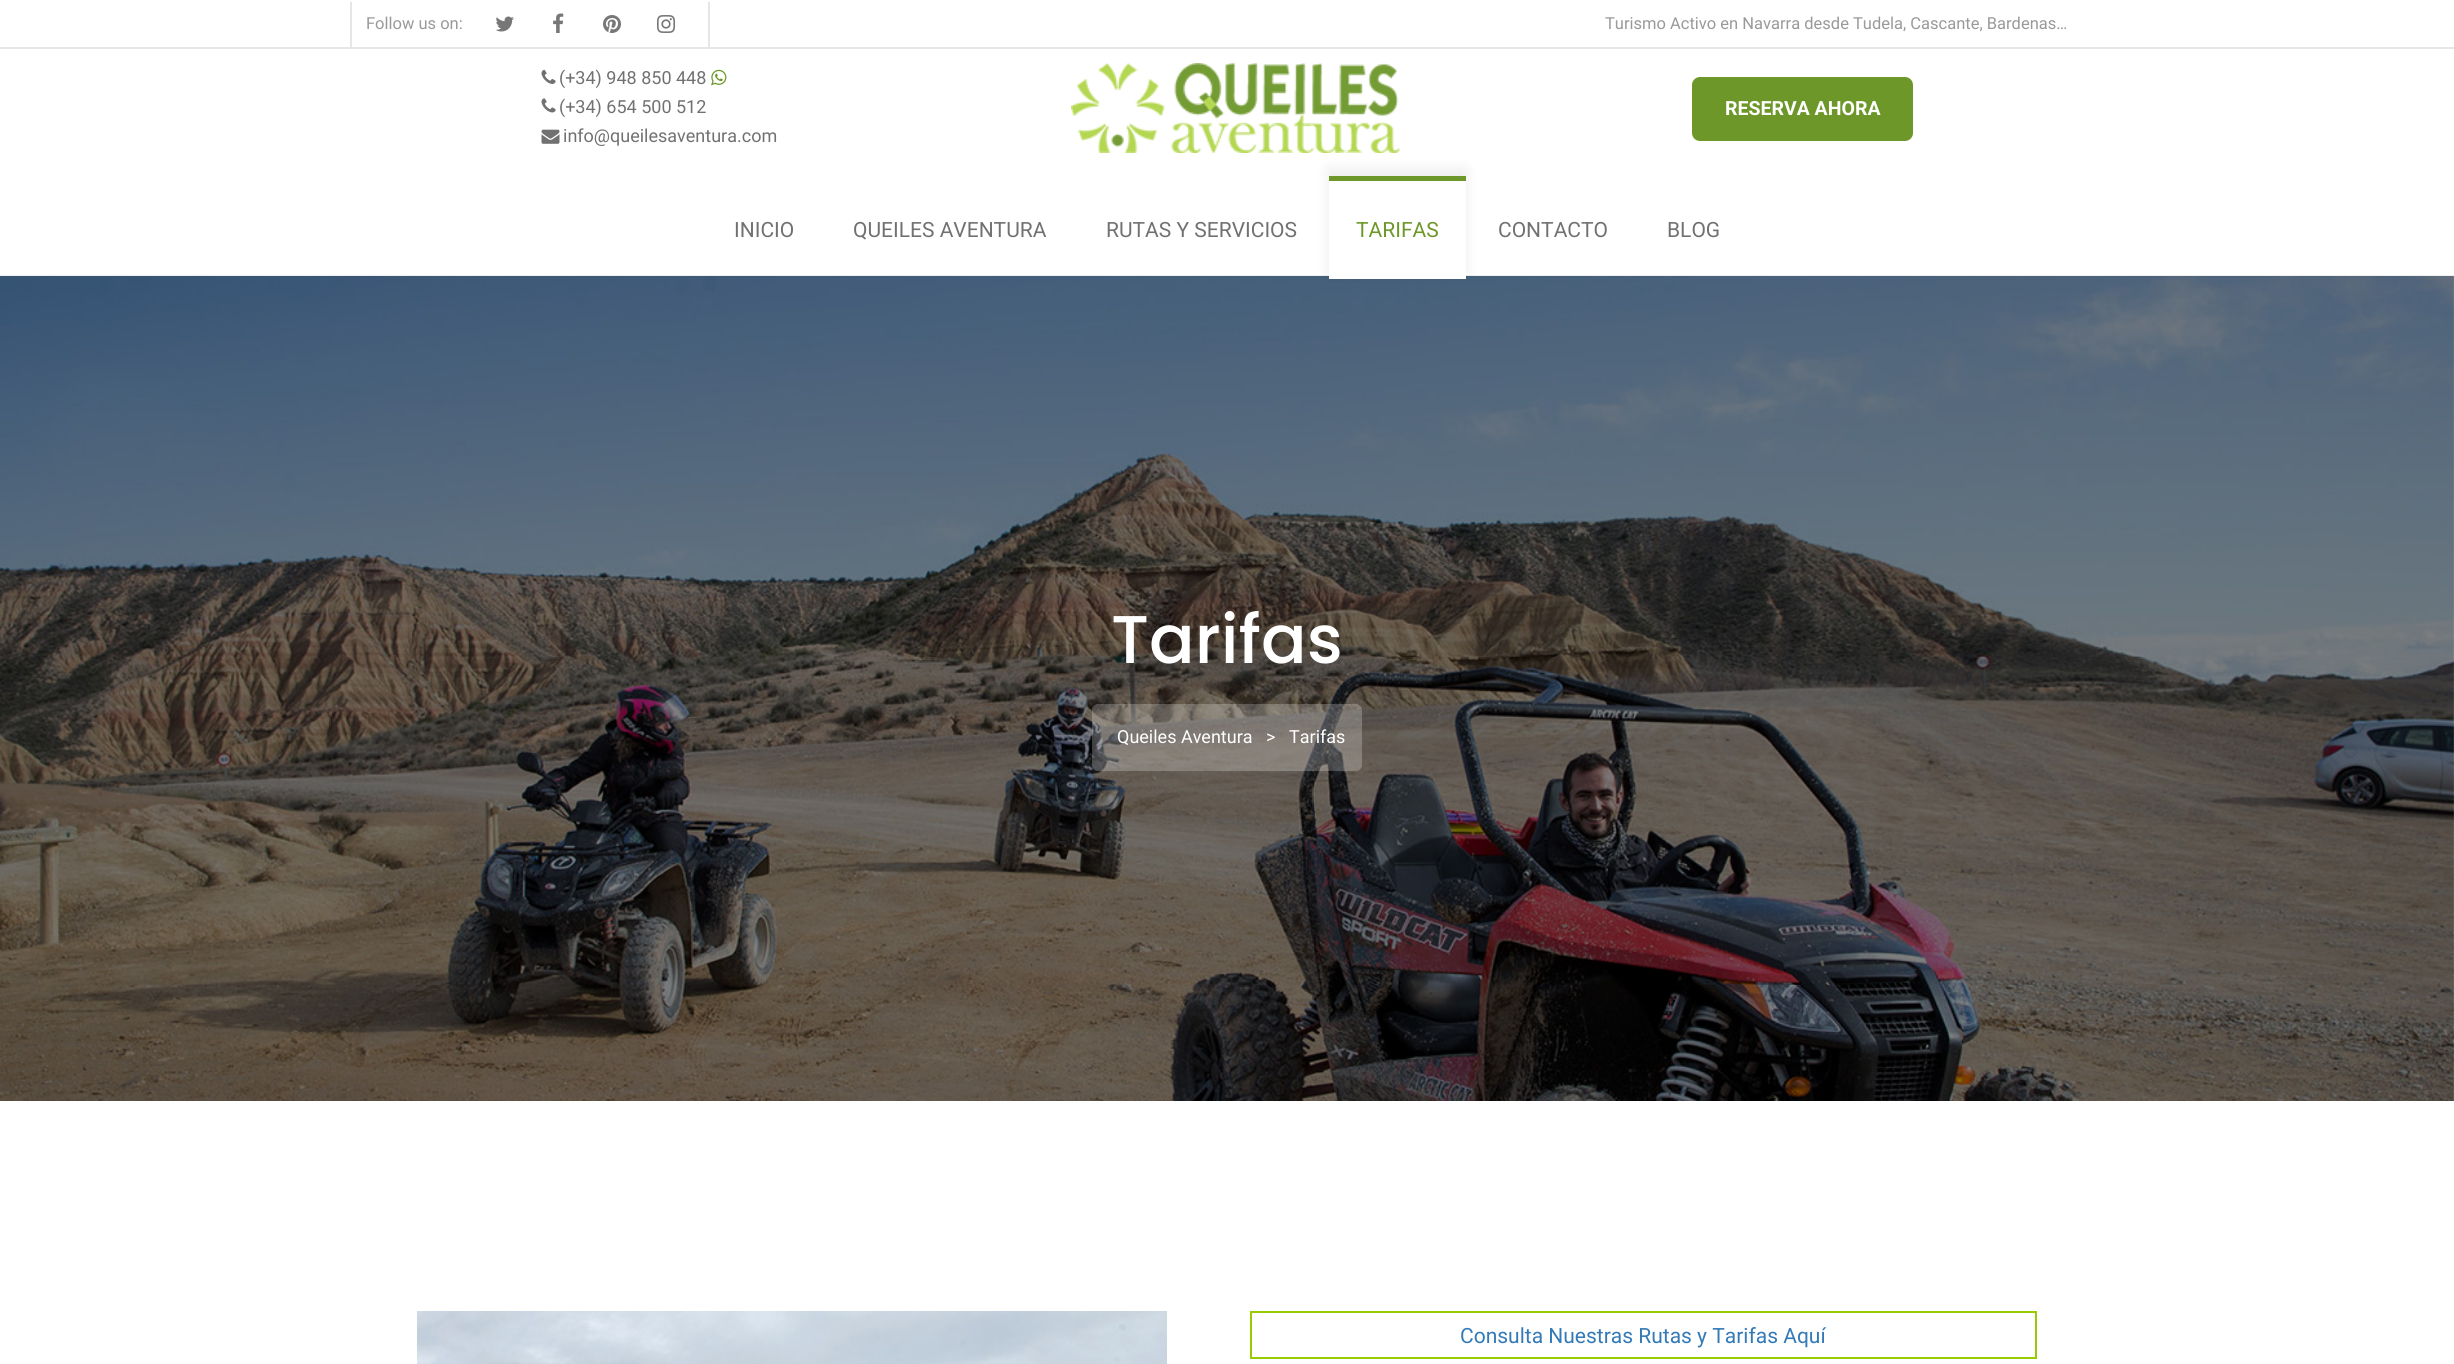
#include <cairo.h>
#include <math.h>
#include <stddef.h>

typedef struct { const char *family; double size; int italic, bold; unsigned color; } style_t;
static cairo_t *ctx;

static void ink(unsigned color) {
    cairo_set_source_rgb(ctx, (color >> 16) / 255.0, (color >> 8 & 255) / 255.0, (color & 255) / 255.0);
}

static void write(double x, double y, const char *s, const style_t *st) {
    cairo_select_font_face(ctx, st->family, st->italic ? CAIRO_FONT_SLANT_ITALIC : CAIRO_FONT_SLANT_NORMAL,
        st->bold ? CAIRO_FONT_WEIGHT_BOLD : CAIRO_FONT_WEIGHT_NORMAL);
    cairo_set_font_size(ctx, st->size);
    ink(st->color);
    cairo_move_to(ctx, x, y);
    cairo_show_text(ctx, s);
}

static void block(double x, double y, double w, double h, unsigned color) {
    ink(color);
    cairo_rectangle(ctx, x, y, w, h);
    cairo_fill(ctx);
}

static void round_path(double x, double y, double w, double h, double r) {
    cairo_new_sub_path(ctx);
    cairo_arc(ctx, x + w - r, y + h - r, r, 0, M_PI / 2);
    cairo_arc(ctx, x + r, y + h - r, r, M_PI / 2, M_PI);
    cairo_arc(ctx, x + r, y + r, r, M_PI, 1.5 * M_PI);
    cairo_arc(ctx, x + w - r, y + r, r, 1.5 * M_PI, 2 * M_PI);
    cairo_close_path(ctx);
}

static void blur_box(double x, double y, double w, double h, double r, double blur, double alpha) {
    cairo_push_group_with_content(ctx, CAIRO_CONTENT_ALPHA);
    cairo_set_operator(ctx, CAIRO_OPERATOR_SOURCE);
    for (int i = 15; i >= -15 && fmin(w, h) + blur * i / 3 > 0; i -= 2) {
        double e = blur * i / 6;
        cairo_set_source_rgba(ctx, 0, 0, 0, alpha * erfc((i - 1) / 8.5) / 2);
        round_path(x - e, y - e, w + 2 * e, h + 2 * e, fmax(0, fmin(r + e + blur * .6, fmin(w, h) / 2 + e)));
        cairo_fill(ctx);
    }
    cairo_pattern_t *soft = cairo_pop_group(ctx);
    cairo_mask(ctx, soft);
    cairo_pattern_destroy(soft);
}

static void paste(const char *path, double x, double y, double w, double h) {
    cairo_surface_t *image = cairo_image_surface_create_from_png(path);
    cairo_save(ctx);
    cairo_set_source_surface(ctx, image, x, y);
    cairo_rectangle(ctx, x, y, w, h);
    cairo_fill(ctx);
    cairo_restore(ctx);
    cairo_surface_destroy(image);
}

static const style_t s1 = {"Roboto", 16.5, 0, 0, 0x999999};
static const style_t s2 = {"Roboto", 18, 0, 0, 0x717171};
static const style_t s3 = {"Roboto", 19.5, 0, 1, 0xffffff};
static const style_t s4 = {"Roboto", 21, 0, 0, 0x717171};
static const style_t s5 = {"Roboto", 21, 0, 0, 0x6d9829};
static const style_t s6 = {"Poppins Medium", 67.5, 0, 0, 0xffffff};
static const style_t s7 = {"Roboto", 18, 0, 0, 0xffffff};
static const style_t s8 = {"Roboto", 21, 0, 0, 0x337ab7};

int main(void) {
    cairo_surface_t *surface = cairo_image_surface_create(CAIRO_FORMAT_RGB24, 2454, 1364);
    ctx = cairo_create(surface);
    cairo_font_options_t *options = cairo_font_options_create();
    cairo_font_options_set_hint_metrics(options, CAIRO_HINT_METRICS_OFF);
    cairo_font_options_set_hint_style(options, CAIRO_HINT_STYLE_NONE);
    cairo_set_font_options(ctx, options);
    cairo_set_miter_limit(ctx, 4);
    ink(0xffffff);
    cairo_paint(ctx);
    block(0, 47, 2454, 2, 0xe6e6e6);
    block(708, 2, 2, 45, 0xe6e6e6);
    block(350, 2, 2, 45, 0xe6e6e6);
    write(366, 29, "Follow us on:", &s1);
    paste("pic1.png", 495, 16, 19, 16);
    paste("pic2.png", 553, 13, 11, 20);
    paste("pic3.png", 603, 15, 18, 18);
    paste("pic4.png", 657, 15, 18, 18);
    write(1605, 29, "Turismo Activo en Navarra desde Tudela, Cascante, Bardenas…", &s1);
    paste("pic5.png", 541, 69, 15, 15);
    write(559, 84, "(+34) 948 850 448", &s2);
    paste("pic6.png", 711, 69, 16, 17);
    paste("pic7.png", 541, 98, 15, 15);
    write(559, 113, "(+34) 654 500 512", &s2);
    paste("pic8.png", 541, 129, 19, 15);
    write(563, 142, "info@queilesaventura.com", &s2);
    paste("pic9.png", 1071, 63, 329, 90);
    ink(0x6d9829);
    round_path(1692, 77, 221, 64, 8);
    cairo_fill(ctx);
    write(1725, 115, "RESERVA AHORA", &s3);
    write(734, 237, "INICIO", &s4);
    write(853, 237, "QUEILES AVENTURA", &s4);
    write(1106, 237, "RUTAS Y SERVICIOS", &s4);
    block(0, 275, 2454, 2, 0xefefef);
    paste("pic10.png", 0, 276, 2454, 825);
    ink(0x000000);
    blur_box(1329, 170, 137, 103, 0, 7.5, 0.08);
    block(1329, 181, 137, 98, 0xffffff);
    block(1329, 176, 137, 5, 0x6d9829);
    write(1356, 237, "TARIFAS", &s5);
    write(1498, 237, "CONTACTO", &s4);
    write(1667, 237, "BLOG", &s4);
    write(1111, 663, "Tarifas", &s6);
    cairo_set_source_rgba(ctx, 1, 1, 1, 0.23);
    round_path(1092, 704, 270, 67, 6);
    cairo_fill(ctx);
    write(1117, 743, "Queiles Aventura", &s7);
    write(1266, 743, ">", &s7);
    write(1289, 743, "Tarifas", &s7);
    paste("pic11.png", 417, 1311, 750, 53);
    cairo_rectangle(ctx, 1251, 1312, 785, 46);
    ink(0x99cc00);
    cairo_stroke(ctx);
    write(1460, 1343, "Consulta Nuestras Rutas y Tarifas Aquí", &s8);
    cairo_surface_write_to_png(surface, "screenshot.png");
    cairo_font_options_destroy(options);
    cairo_destroy(ctx);
    cairo_surface_destroy(surface);
    return 0;
}
